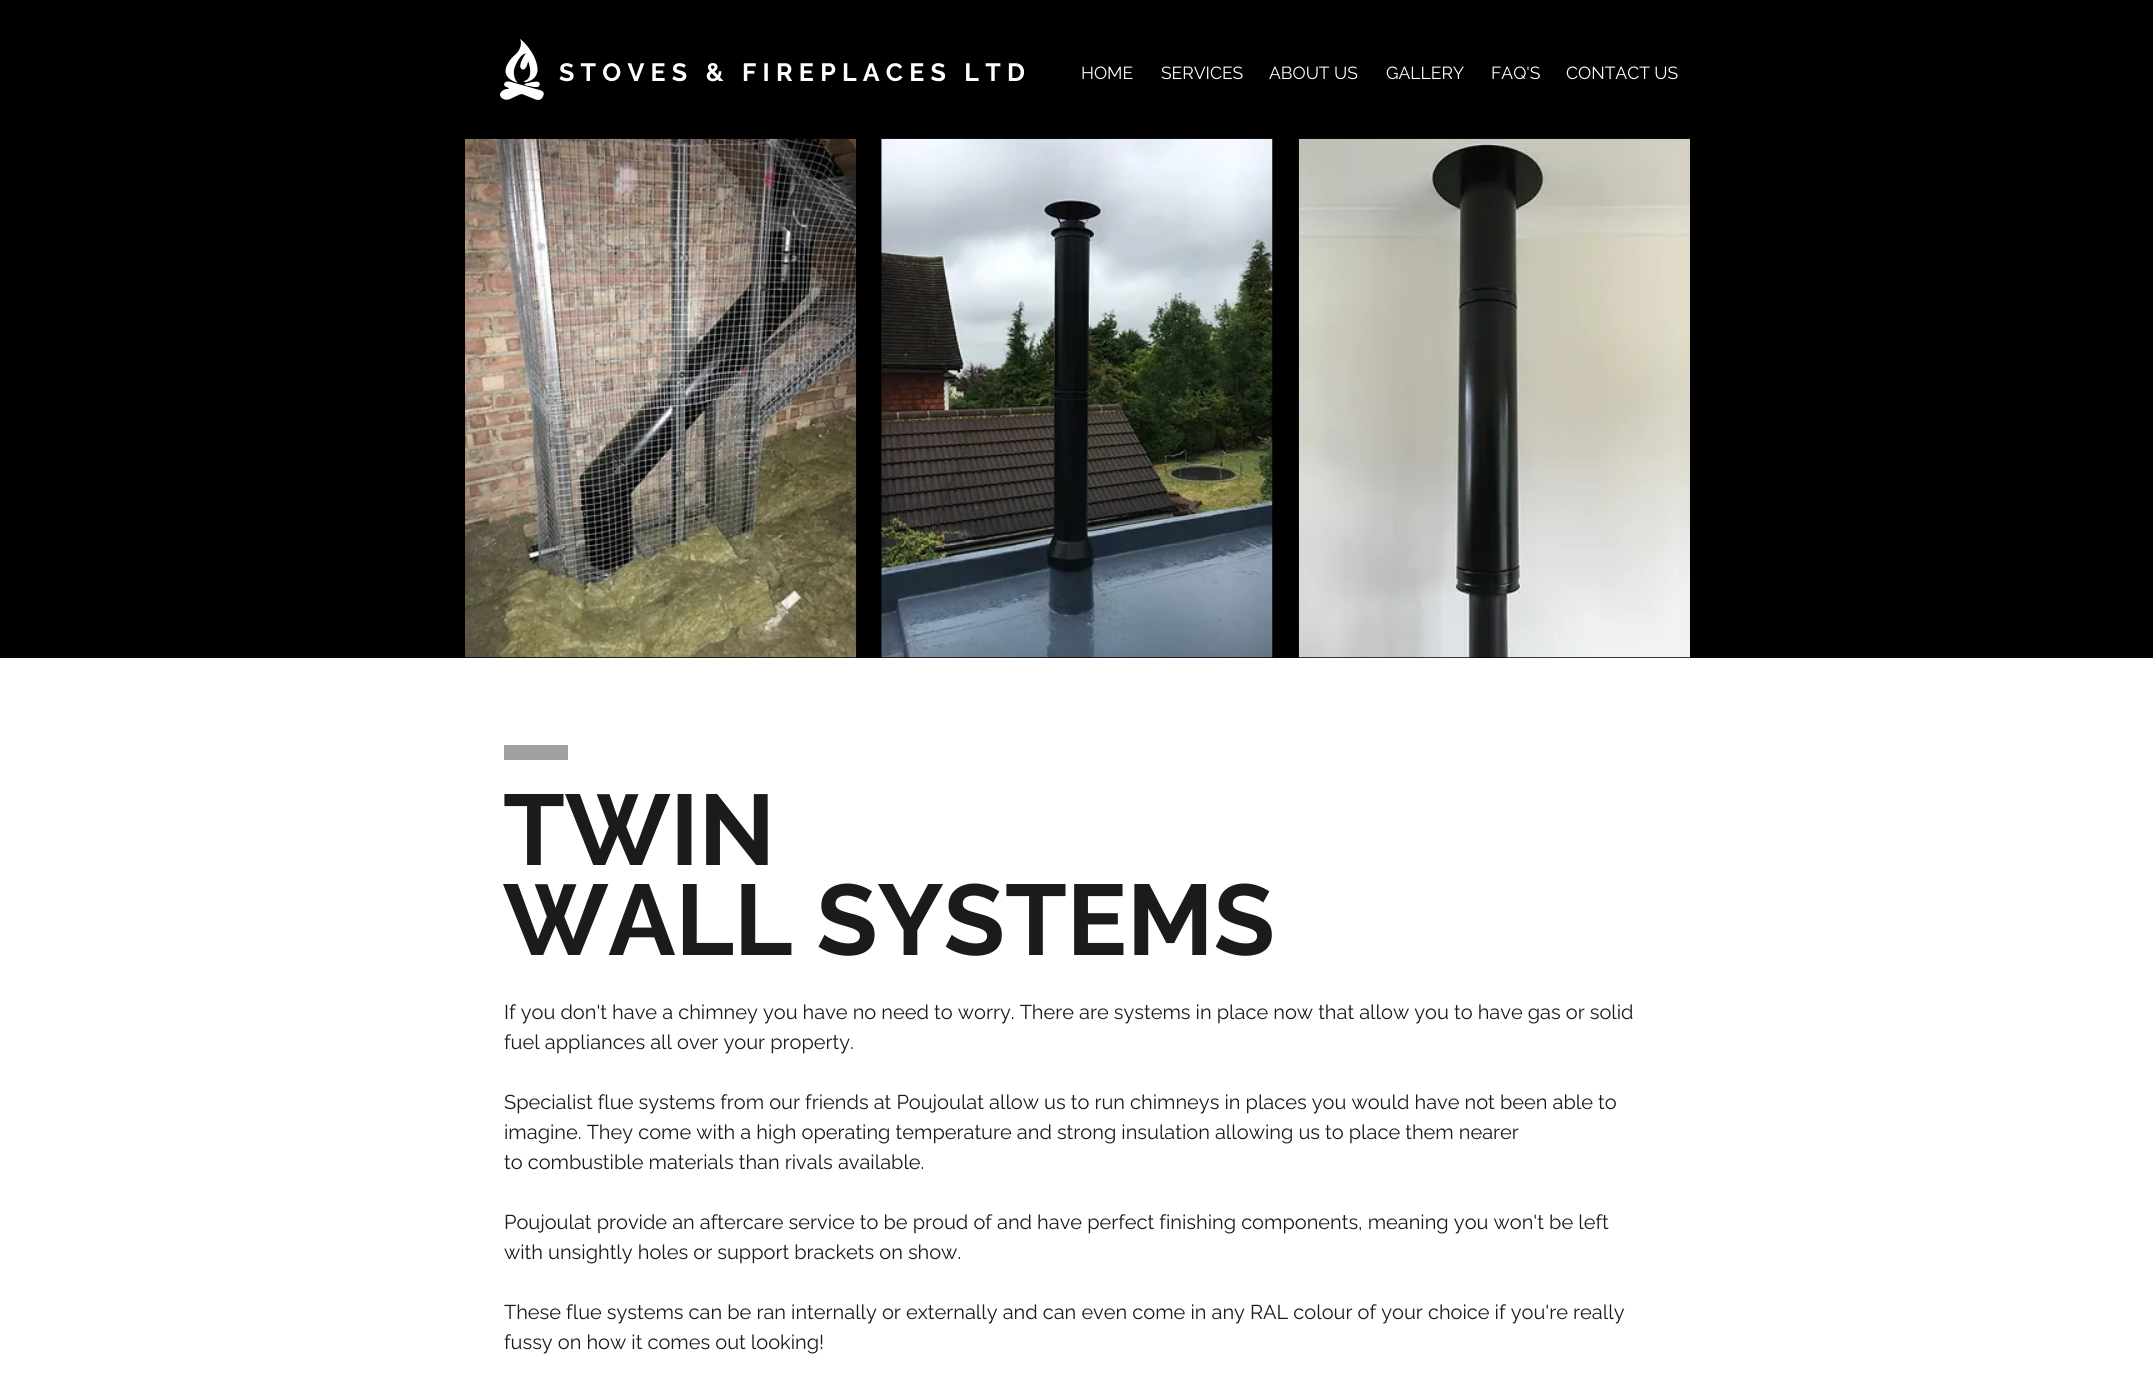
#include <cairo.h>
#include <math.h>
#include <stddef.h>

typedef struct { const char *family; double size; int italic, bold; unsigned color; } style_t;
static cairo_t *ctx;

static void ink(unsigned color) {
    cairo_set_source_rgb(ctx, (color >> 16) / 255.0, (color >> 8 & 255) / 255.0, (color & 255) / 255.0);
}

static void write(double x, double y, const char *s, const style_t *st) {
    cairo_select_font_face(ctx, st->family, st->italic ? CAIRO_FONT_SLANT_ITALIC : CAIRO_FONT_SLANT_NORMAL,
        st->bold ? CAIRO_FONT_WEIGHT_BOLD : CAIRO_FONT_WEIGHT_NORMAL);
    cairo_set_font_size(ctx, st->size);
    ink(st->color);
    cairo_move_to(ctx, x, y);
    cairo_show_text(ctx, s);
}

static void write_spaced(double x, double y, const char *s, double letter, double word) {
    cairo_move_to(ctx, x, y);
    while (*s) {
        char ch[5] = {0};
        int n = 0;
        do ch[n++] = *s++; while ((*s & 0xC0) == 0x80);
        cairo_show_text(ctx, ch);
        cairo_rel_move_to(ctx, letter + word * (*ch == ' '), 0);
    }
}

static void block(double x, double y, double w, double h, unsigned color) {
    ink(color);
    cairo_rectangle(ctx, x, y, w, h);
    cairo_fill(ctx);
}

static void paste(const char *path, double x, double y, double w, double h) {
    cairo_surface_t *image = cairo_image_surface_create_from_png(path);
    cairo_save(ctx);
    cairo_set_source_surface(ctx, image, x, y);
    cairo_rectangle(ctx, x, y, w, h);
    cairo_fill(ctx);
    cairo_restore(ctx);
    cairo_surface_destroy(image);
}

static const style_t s1 = {"Raleway", 17.5, 0, 0, 0xffffff};
static const style_t s2 = {"Raleway", 100, 0, 1, 0x1b1b1e};
static const style_t s3 = {"Raleway", 20, 0, 0, 0x1b1b1e};

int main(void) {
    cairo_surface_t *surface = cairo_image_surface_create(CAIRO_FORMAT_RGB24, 2153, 1373);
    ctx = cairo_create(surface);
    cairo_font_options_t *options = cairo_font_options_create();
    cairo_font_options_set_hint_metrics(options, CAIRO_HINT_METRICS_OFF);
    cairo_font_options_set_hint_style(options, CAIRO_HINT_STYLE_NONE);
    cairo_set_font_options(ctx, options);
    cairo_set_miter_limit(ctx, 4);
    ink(0x000000);
    cairo_paint(ctx);
    paste("pic1.png", 500, 39, 44, 61);
    cairo_select_font_face(ctx, "Raleway", CAIRO_FONT_SLANT_NORMAL, CAIRO_FONT_WEIGHT_BOLD);
    cairo_set_font_size(ctx, 25);
    ink(0xffffff);
    write_spaced(559, 81, "STOVES & FIREPLACES LTD", 6.25, 0);
    write(1081, 79, "HOME", &s1);
    write(1161, 79, "SERVICES", &s1);
    write(1269, 79, "ABOUT US", &s1);
    write(1386, 79, "GALLERY", &s1);
    write(1491, 79, "FAQ'S", &s1);
    write(1566, 79, "CONTACT US", &s1);
    paste("pic2.png", 465, 138, 392, 520);
    paste("pic3.png", 881, 138, 392, 520);
    paste("pic4.png", 1298, 138, 392, 520);
    block(0, 658, 2153, 715, 0xffffff);
    block(504, 745, 64, 15, 0xa0a09f);
    write(503, 865, "TWIN", &s2);
    write(503, 955, "WALL SYSTEMS", &s2);
    write(504, 1019, "If you don't have a chimney you have no need to worry. There are systems in place now that allow you to have gas or solid", &s3);
    write(504, 1049, "fuel appliances all over your property.", &s3);
    write(504, 1109, "Specialist flue systems from our friends at Poujoulat allow us to run chimneys in places you would have not been able to", &s3);
    write(504, 1139, "imagine. They come with a high operating temperature and strong insulation allowing us to place them nearer", &s3);
    write(504, 1169, "to combustible materials than rivals available.", &s3);
    write(504, 1229, "Poujoulat provide an aftercare service to be proud of and have perfect finishing components, meaning you won't be left", &s3);
    write(504, 1259, "with unsightly holes or support brackets on show.", &s3);
    write(504, 1319, "These flue systems can be ran internally or externally and can even come in any RAL colour of your choice if you're really", &s3);
    write(504, 1349, "fussy on how it comes out looking!", &s3);
    cairo_surface_write_to_png(surface, "screenshot.png");
    cairo_font_options_destroy(options);
    cairo_destroy(ctx);
    cairo_surface_destroy(surface);
    return 0;
}
